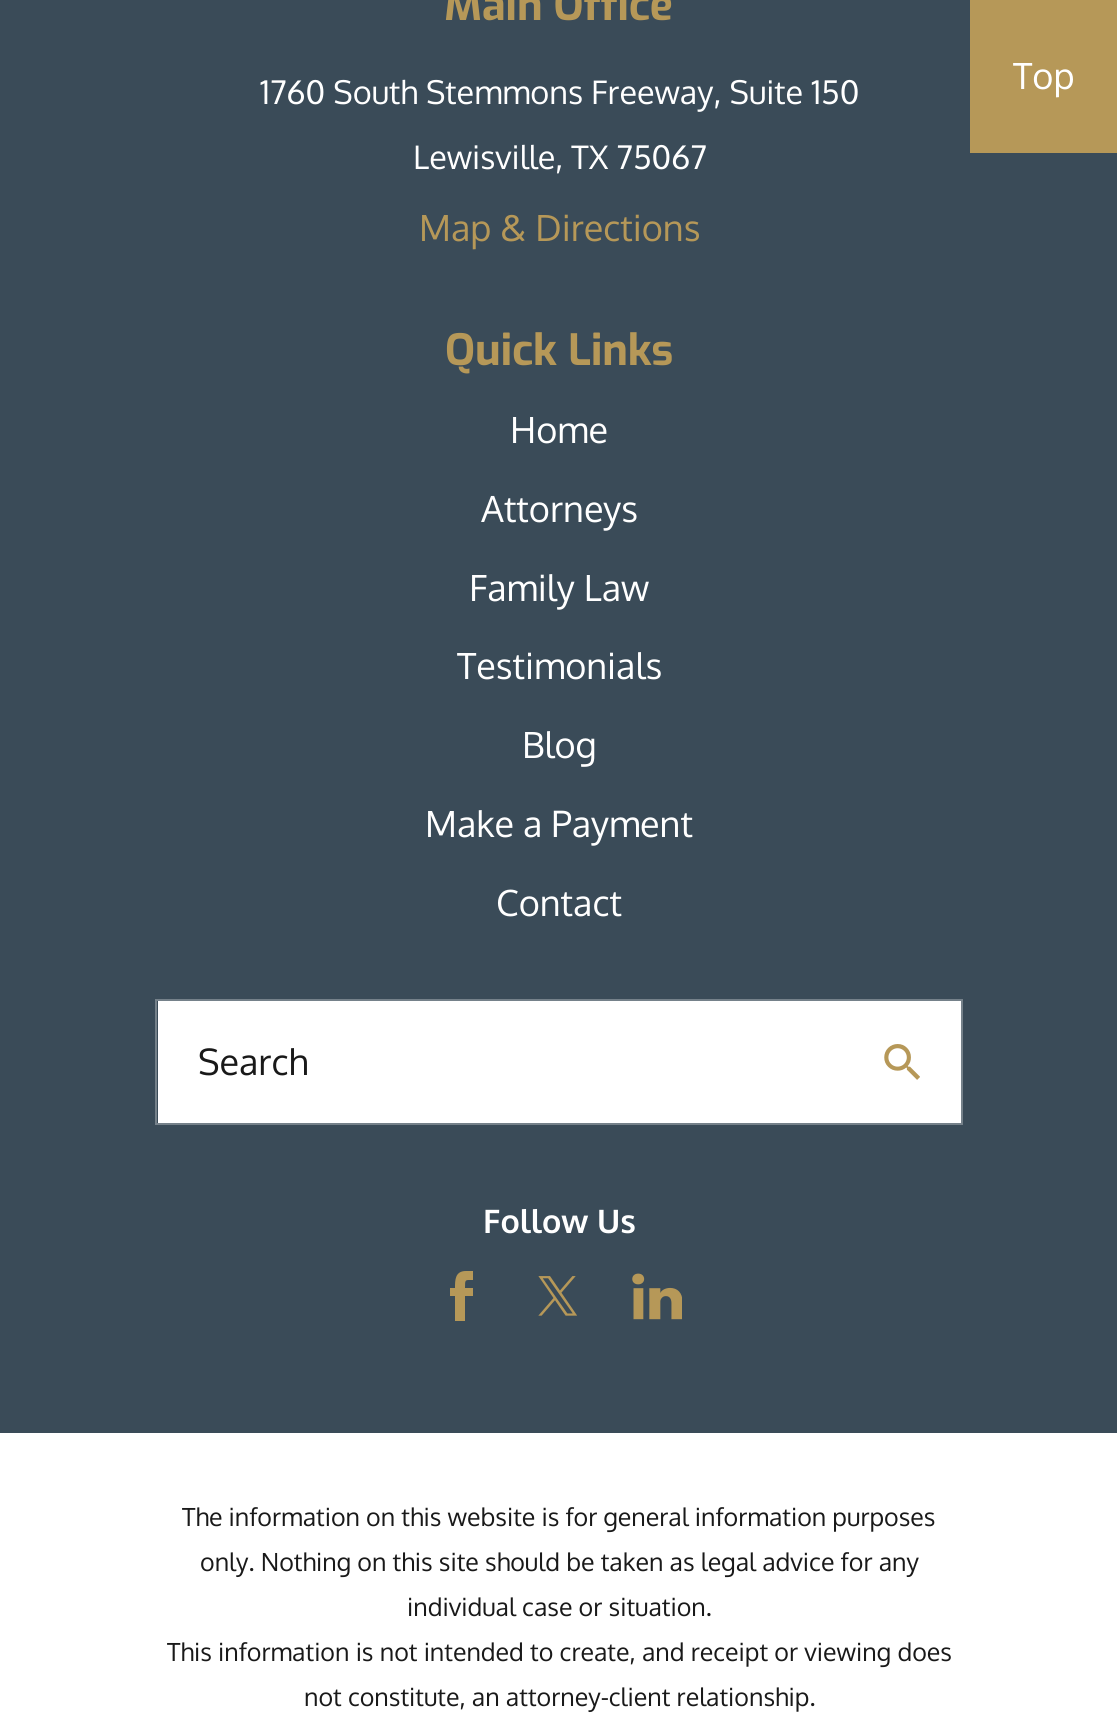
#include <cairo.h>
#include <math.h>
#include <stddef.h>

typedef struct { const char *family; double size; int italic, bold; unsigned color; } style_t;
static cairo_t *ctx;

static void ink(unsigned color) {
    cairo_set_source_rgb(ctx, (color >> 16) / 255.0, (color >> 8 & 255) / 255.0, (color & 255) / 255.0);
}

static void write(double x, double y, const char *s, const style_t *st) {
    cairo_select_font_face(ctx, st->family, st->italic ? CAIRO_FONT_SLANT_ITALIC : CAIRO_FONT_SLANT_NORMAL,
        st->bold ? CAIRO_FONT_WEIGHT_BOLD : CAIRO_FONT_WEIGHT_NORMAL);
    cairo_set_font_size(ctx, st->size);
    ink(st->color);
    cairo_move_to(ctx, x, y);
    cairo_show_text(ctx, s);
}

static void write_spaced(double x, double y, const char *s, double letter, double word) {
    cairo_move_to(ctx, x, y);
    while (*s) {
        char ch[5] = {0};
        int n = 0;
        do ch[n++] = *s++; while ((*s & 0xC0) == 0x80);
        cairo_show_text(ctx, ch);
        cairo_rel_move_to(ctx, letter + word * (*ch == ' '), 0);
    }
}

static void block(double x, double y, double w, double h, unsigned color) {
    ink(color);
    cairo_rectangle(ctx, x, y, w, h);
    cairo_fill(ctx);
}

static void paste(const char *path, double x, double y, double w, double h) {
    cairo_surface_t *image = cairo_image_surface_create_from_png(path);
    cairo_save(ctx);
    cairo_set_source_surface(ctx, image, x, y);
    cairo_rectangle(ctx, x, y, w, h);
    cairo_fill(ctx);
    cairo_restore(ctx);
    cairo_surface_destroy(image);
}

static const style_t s1 = {"Exo", 43, 0, 1, 0xb69858};
static const style_t s2 = {"Oxygen", 32.4, 0, 0, 0xffffff};
static const style_t s3 = {"Oxygen", 36, 0, 0, 0xb69858};
static const style_t s4 = {"Oxygen", 36, 0, 0, 0xffffff};
static const style_t s5 = {"Oxygen", 36, 0, 0, 0x191919};
static const style_t s6 = {"Oxygen", 32.4, 0, 1, 0xffffff};
static const style_t s7 = {"Oxygen", 24.95, 0, 0, 0x191919};

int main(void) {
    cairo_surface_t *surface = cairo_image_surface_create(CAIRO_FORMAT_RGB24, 1117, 1735);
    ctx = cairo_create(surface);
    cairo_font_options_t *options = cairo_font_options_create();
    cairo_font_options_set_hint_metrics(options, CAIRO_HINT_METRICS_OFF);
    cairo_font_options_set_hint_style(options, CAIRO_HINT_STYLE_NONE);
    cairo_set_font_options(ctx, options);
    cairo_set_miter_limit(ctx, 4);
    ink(0xffffff);
    cairo_paint(ctx);
    block(0, 0, 1117, 1433, 0x3a4b58);
    write(444, 20, "Main Office", &s1);
    write(260, 104, "1760 South Stemmons Freeway, Suite 150", &s2);
    write(413, 169, "Lewisville, TX 75067", &s2);
    write(419, 241, "Map & Directions", &s3);
    write(445, 365, "Quick Links", &s1);
    write(510, 443, "Home", &s4);
    write(481, 522, "Attorneys", &s4);
    write(469, 601, "Family Law", &s4);
    write(457, 679, "Testimonials", &s4);
    write(522, 758, "Blog", &s4);
    write(425, 837, "Make a Payment", &s4);
    write(496, 916, "Contact", &s4);
    block(158, 1001, 803, 122, 0xffffff);
    cairo_rectangle(ctx, 156, 1000, 806, 124);
    ink(0x75818a);
    cairo_stroke(ctx);
    write(198, 1075, "Search", &s5);
    paste("pic1.png", 884, 1044, 36, 36);
    write(483, 1233, "Follow Us", &s6);
    cairo_save(ctx);
    cairo_rectangle(ctx, 437, 1271, 49, 50);
    cairo_clip(ctx);
    ink(0xb69858);
    cairo_new_path(ctx);
    cairo_move_to(ctx, 466, 1271);
    cairo_curve_to(ctx, 455, 1271, 455, 1280, 455, 1288);
    cairo_line_to(ctx, 450, 1288);
    cairo_line_to(ctx, 450, 1296);
    cairo_line_to(ctx, 455, 1296);
    cairo_line_to(ctx, 455, 1322);
    cairo_line_to(ctx, 465, 1322);
    cairo_line_to(ctx, 465, 1296);
    cairo_line_to(ctx, 473, 1296);
    cairo_line_to(ctx, 473, 1288);
    cairo_line_to(ctx, 465, 1288);
    cairo_curve_to(ctx, 465, 1279, 465, 1280, 473, 1280);
    cairo_line_to(ctx, 473, 1271);
    cairo_close_path(ctx);
    cairo_fill(ctx);
    cairo_restore(ctx);
    paste("pic2.png", 538, 1276, 39, 40);
    paste("pic3.png", 632, 1273, 50, 47);
    cairo_select_font_face(ctx, "Oxygen", CAIRO_FONT_SLANT_NORMAL, CAIRO_FONT_WEIGHT_NORMAL);
    cairo_set_font_size(ctx, 24.95);
    ink(0x191919);
    write_spaced(182, 1526, "The information on this website is for general information purposes", 0, -0.1);
    write(200, 1571, "only. Nothing on this site should be taken as legal advice for any", &s7);
    write(407, 1616, "individual case or situation.", &s7);
    write(167, 1661, "This information is not intended to create, and receipt or viewing does", &s7);
    write(304, 1706, "not constitute, an attorney-client relationship.", &s7);
    block(970, 0, 147, 153, 0xb69858);
    write(1013, 89, "Top", &s4);
    cairo_surface_write_to_png(surface, "screenshot.png");
    cairo_font_options_destroy(options);
    cairo_destroy(ctx);
    cairo_surface_destroy(surface);
    return 0;
}
